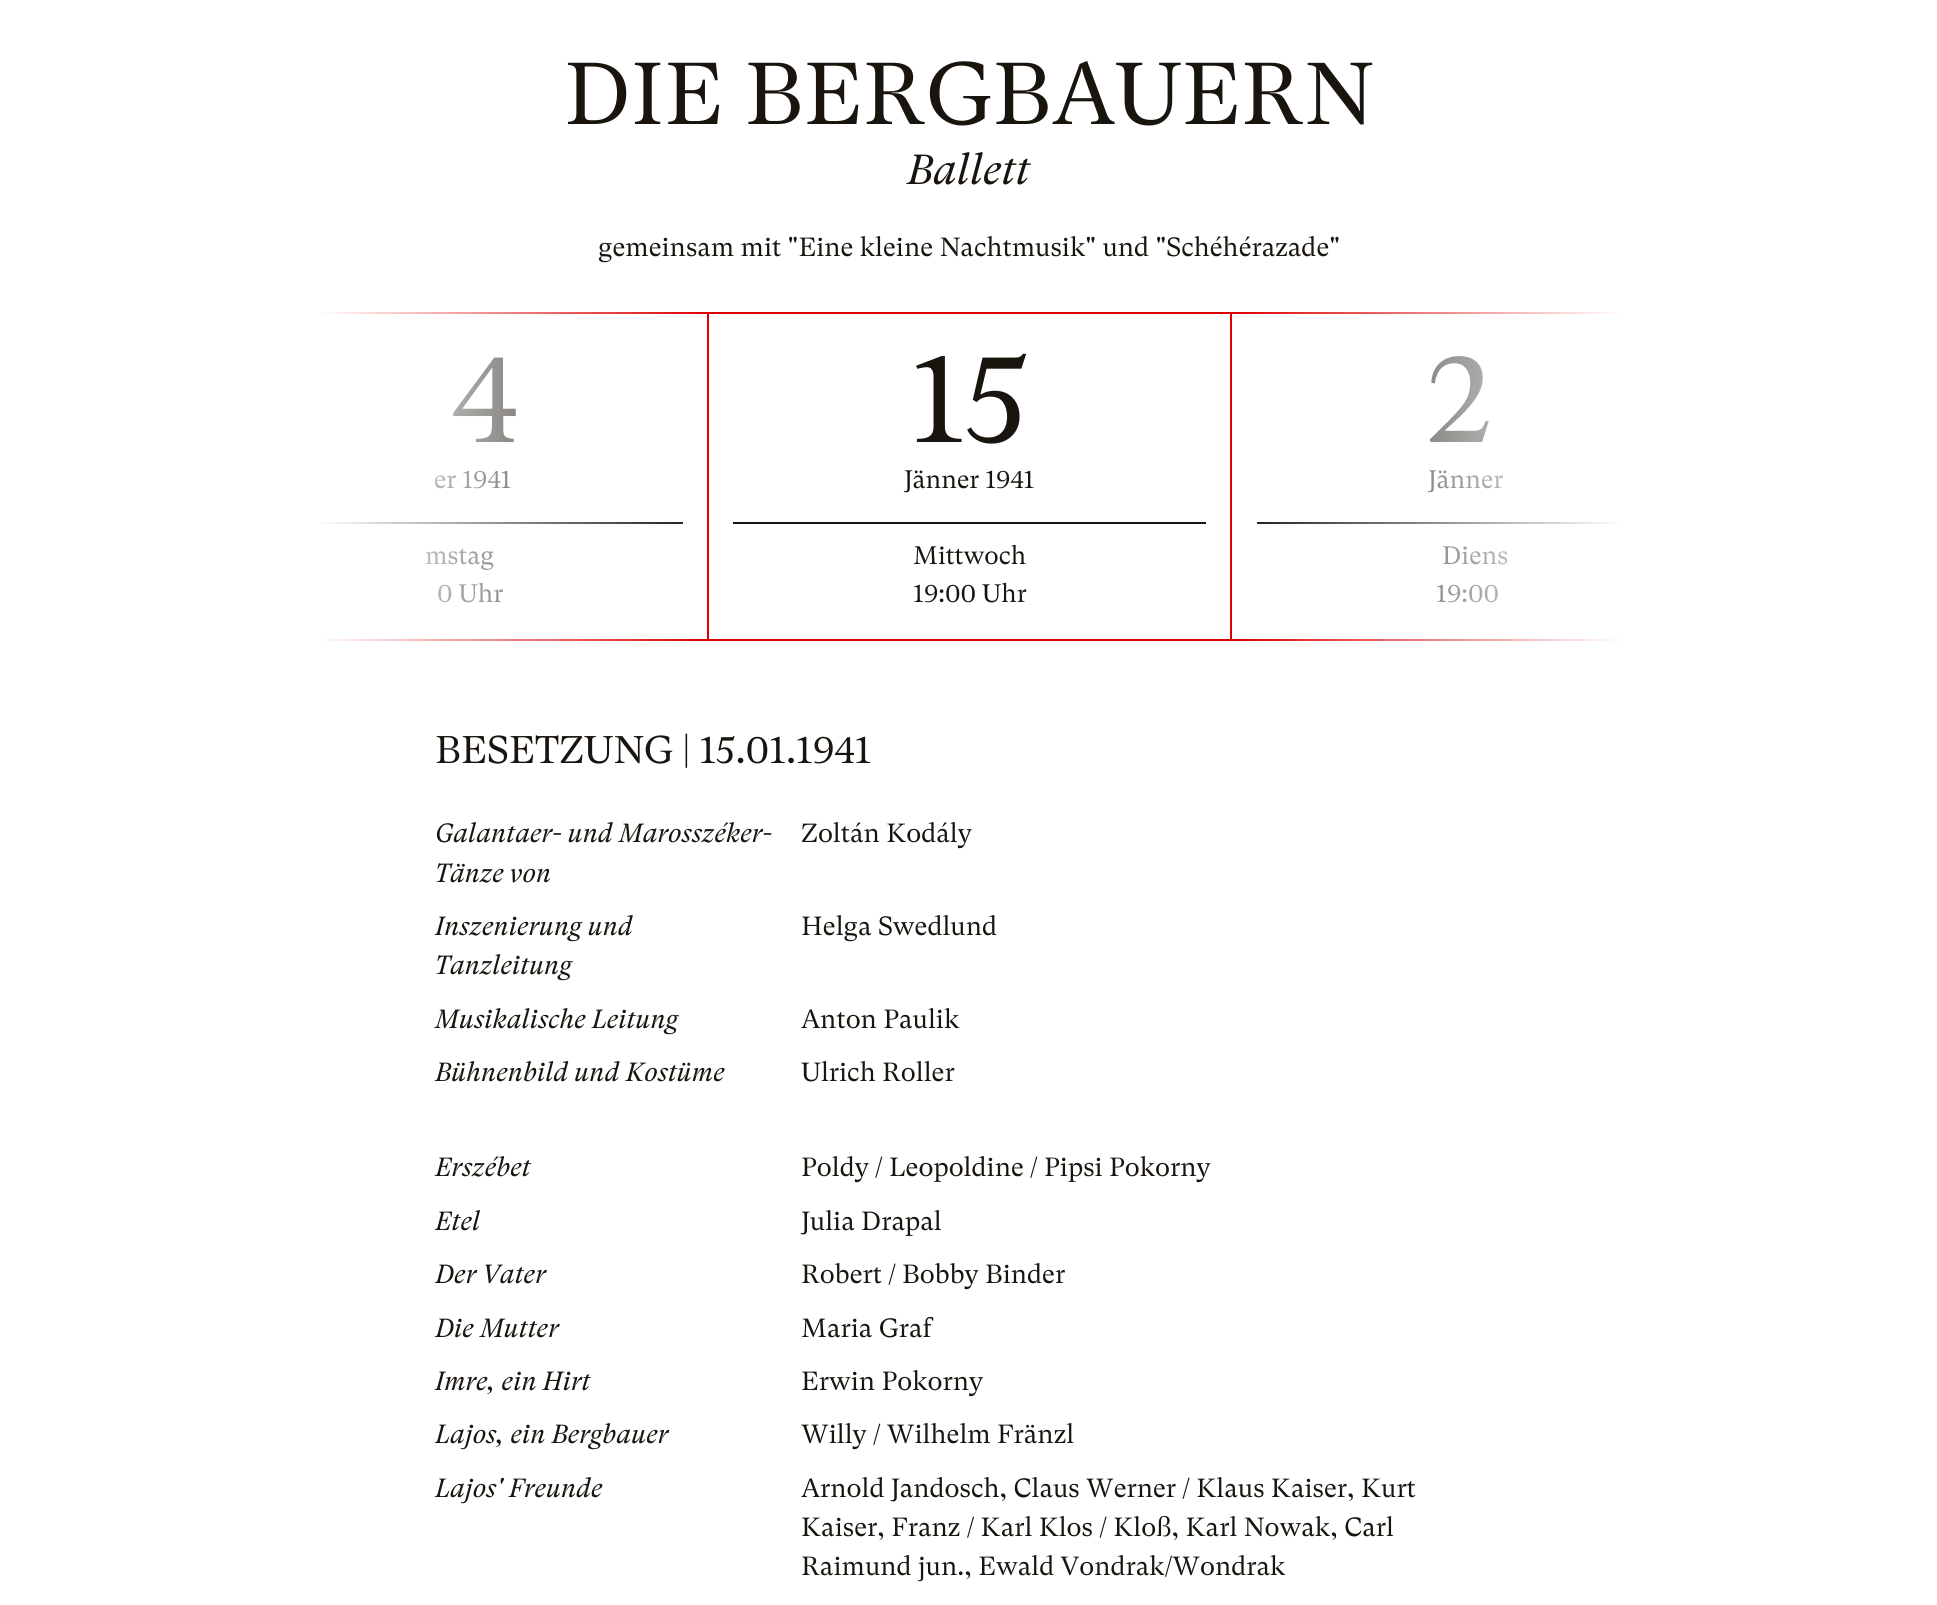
#include <cairo.h>
#include <math.h>
#include <stddef.h>

typedef struct { const char *family; double size; int italic, bold; unsigned color; } style_t;
static cairo_t *ctx;

static void ink(unsigned color) {
    cairo_set_source_rgb(ctx, (color >> 16) / 255.0, (color >> 8 & 255) / 255.0, (color & 255) / 255.0);
}

static void write(double x, double y, const char *s, const style_t *st) {
    cairo_select_font_face(ctx, st->family, st->italic ? CAIRO_FONT_SLANT_ITALIC : CAIRO_FONT_SLANT_NORMAL,
        st->bold ? CAIRO_FONT_WEIGHT_BOLD : CAIRO_FONT_WEIGHT_NORMAL);
    cairo_set_font_size(ctx, st->size);
    ink(st->color);
    cairo_move_to(ctx, x, y);
    cairo_show_text(ctx, s);
}

static void block(double x, double y, double w, double h, unsigned color) {
    ink(color);
    cairo_rectangle(ctx, x, y, w, h);
    cairo_fill(ctx);
}

static const style_t s1 = {"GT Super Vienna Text", 87.5, 0, 0, 0x19140e};
static const style_t s2 = {"GT Super Vienna Text", 42, 1, 0, 0x19140e};
static const style_t s3 = {"GT Super Vienna Text", 26.25, 0, 0, 0x19140e};
static const style_t s4 = {"GT Super Vienna Text", 126, 0, 0, 0x19140e};
static const style_t s5 = {"GT Super Vienna Text", 25.25, 0, 0, 0x19140e};
static const style_t s6 = {"GT Super Vienna Text", 38.5, 0, 0, 0x19140e};
static const style_t s7 = {"GT Super Vienna Text", 26.25, 1, 0, 0x19140e};

int main(void) {
    cairo_surface_t *surface = cairo_image_surface_create(CAIRO_FORMAT_RGB24, 1937, 1605);
    ctx = cairo_create(surface);
    cairo_font_options_t *options = cairo_font_options_create();
    cairo_font_options_set_hint_metrics(options, CAIRO_HINT_METRICS_OFF);
    cairo_font_options_set_hint_style(options, CAIRO_HINT_STYLE_NONE);
    cairo_set_font_options(ctx, options);
    cairo_set_miter_limit(ctx, 4);
    cairo_pattern_t *gradient;
    ink(0xffffff);
    cairo_paint(ctx);
    write(564, 124, "DIE BERGBAUERN", &s1);
    write(907, 184, "Ballett", &s2);
    write(598, 256, "gemeinsam mit \"Eine kleine Nachtmusik\" und \"Schéhérazade\"", &s3);
    cairo_rectangle(ctx, 185, 313, 523, 327);
    ink(0xde0000);
    cairo_stroke(ctx);
    write(452, 442, "4", &s4);
    block(318, 522, 365, 2, 0x19140e);
    write(434, 488, "er 1941", &s5);
    write(425, 564, "mstag", &s5);
    write(437, 602, "0 Uhr", &s5);
    gradient = cairo_pattern_create_linear(184, 476, 709, 476);
    cairo_pattern_add_color_stop_rgba(gradient, 0.25, 1, 1, 1, 1);
    cairo_pattern_add_color_stop_rgba(gradient, 1, 1, 1, 1, 0);
    cairo_set_source(ctx, gradient);
    cairo_pattern_destroy(gradient);
    cairo_rectangle(ctx, 184, 312, 517, 329);
    cairo_fill(ctx);
    cairo_rectangle(ctx, 708, 313, 523, 327);
    ink(0xde0000);
    cairo_stroke(ctx);
    write(911, 442, "15", &s4);
    block(733, 522, 473, 2, 0x19140e);
    write(904, 488, "Jänner 1941", &s5);
    write(913, 564, "Mittwoch", &s5);
    write(913, 602, "19:00 Uhr", &s5);
    cairo_rectangle(ctx, 1231, 313, 523, 327);
    ink(0xde0000);
    cairo_stroke(ctx);
    write(1426, 442, "2", &s4);
    block(1257, 522, 364, 2, 0x19140e);
    write(1428, 488, "Jänner", &s5);
    write(1442, 564, "Diens", &s5);
    write(1436, 602, "19:00", &s5);
    gradient = cairo_pattern_create_linear(1755, 476, 1230, 476);
    cairo_pattern_add_color_stop_rgba(gradient, 0.25, 1, 1, 1, 1);
    cairo_pattern_add_color_stop_rgba(gradient, 1, 1, 1, 1, 0);
    cairo_set_source(ctx, gradient);
    cairo_pattern_destroy(gradient);
    cairo_rectangle(ctx, 1238, 312, 517, 329);
    cairo_fill(ctx);
    write(435, 763, "BESETZUNG | 15.01.1941", &s6);
    write(435, 842, "Galantaer- und Marosszéker-", &s7);
    write(435, 882, "Tänze von", &s7);
    write(801, 842, "Zoltán Kodály", &s3);
    write(435, 935, "Inszenierung und", &s7);
    write(435, 974, "Tanzleitung", &s7);
    write(801, 935, "Helga Swedlund", &s3);
    write(435, 1028, "Musikalische Leitung", &s7);
    write(801, 1028, "Anton Paulik", &s3);
    write(435, 1081, "Bühnenbild und Kostüme", &s7);
    write(801, 1081, "Ulrich Roller", &s3);
    write(435, 1176, "Erszébet", &s7);
    write(801, 1176, "Poldy / Leopoldine / Pipsi Pokorny", &s3);
    write(435, 1230, "Etel", &s7);
    write(801, 1230, "Julia Drapal", &s3);
    write(435, 1283, "Der Vater", &s7);
    write(801, 1283, "Robert / Bobby Binder", &s3);
    write(435, 1337, "Die Mutter", &s7);
    write(801, 1337, "Maria Graf", &s3);
    write(435, 1390, "Imre, ein Hirt", &s7);
    write(801, 1390, "Erwin Pokorny", &s3);
    write(435, 1443, "Lajos, ein Bergbauer", &s7);
    write(801, 1443, "Willy / Wilhelm Fränzl", &s3);
    write(435, 1497, "Lajos' Freunde", &s7);
    write(801, 1497, "Arnold Jandosch, Claus Werner / Klaus Kaiser, Kurt", &s3);
    write(801, 1536, "Kaiser, Franz / Karl Klos / Kloß, Karl Nowak, Carl", &s3);
    write(801, 1575, "Raimund jun., Ewald Vondrak/Wondrak", &s3);
    cairo_surface_write_to_png(surface, "screenshot.png");
    cairo_font_options_destroy(options);
    cairo_destroy(ctx);
    cairo_surface_destroy(surface);
    return 0;
}
